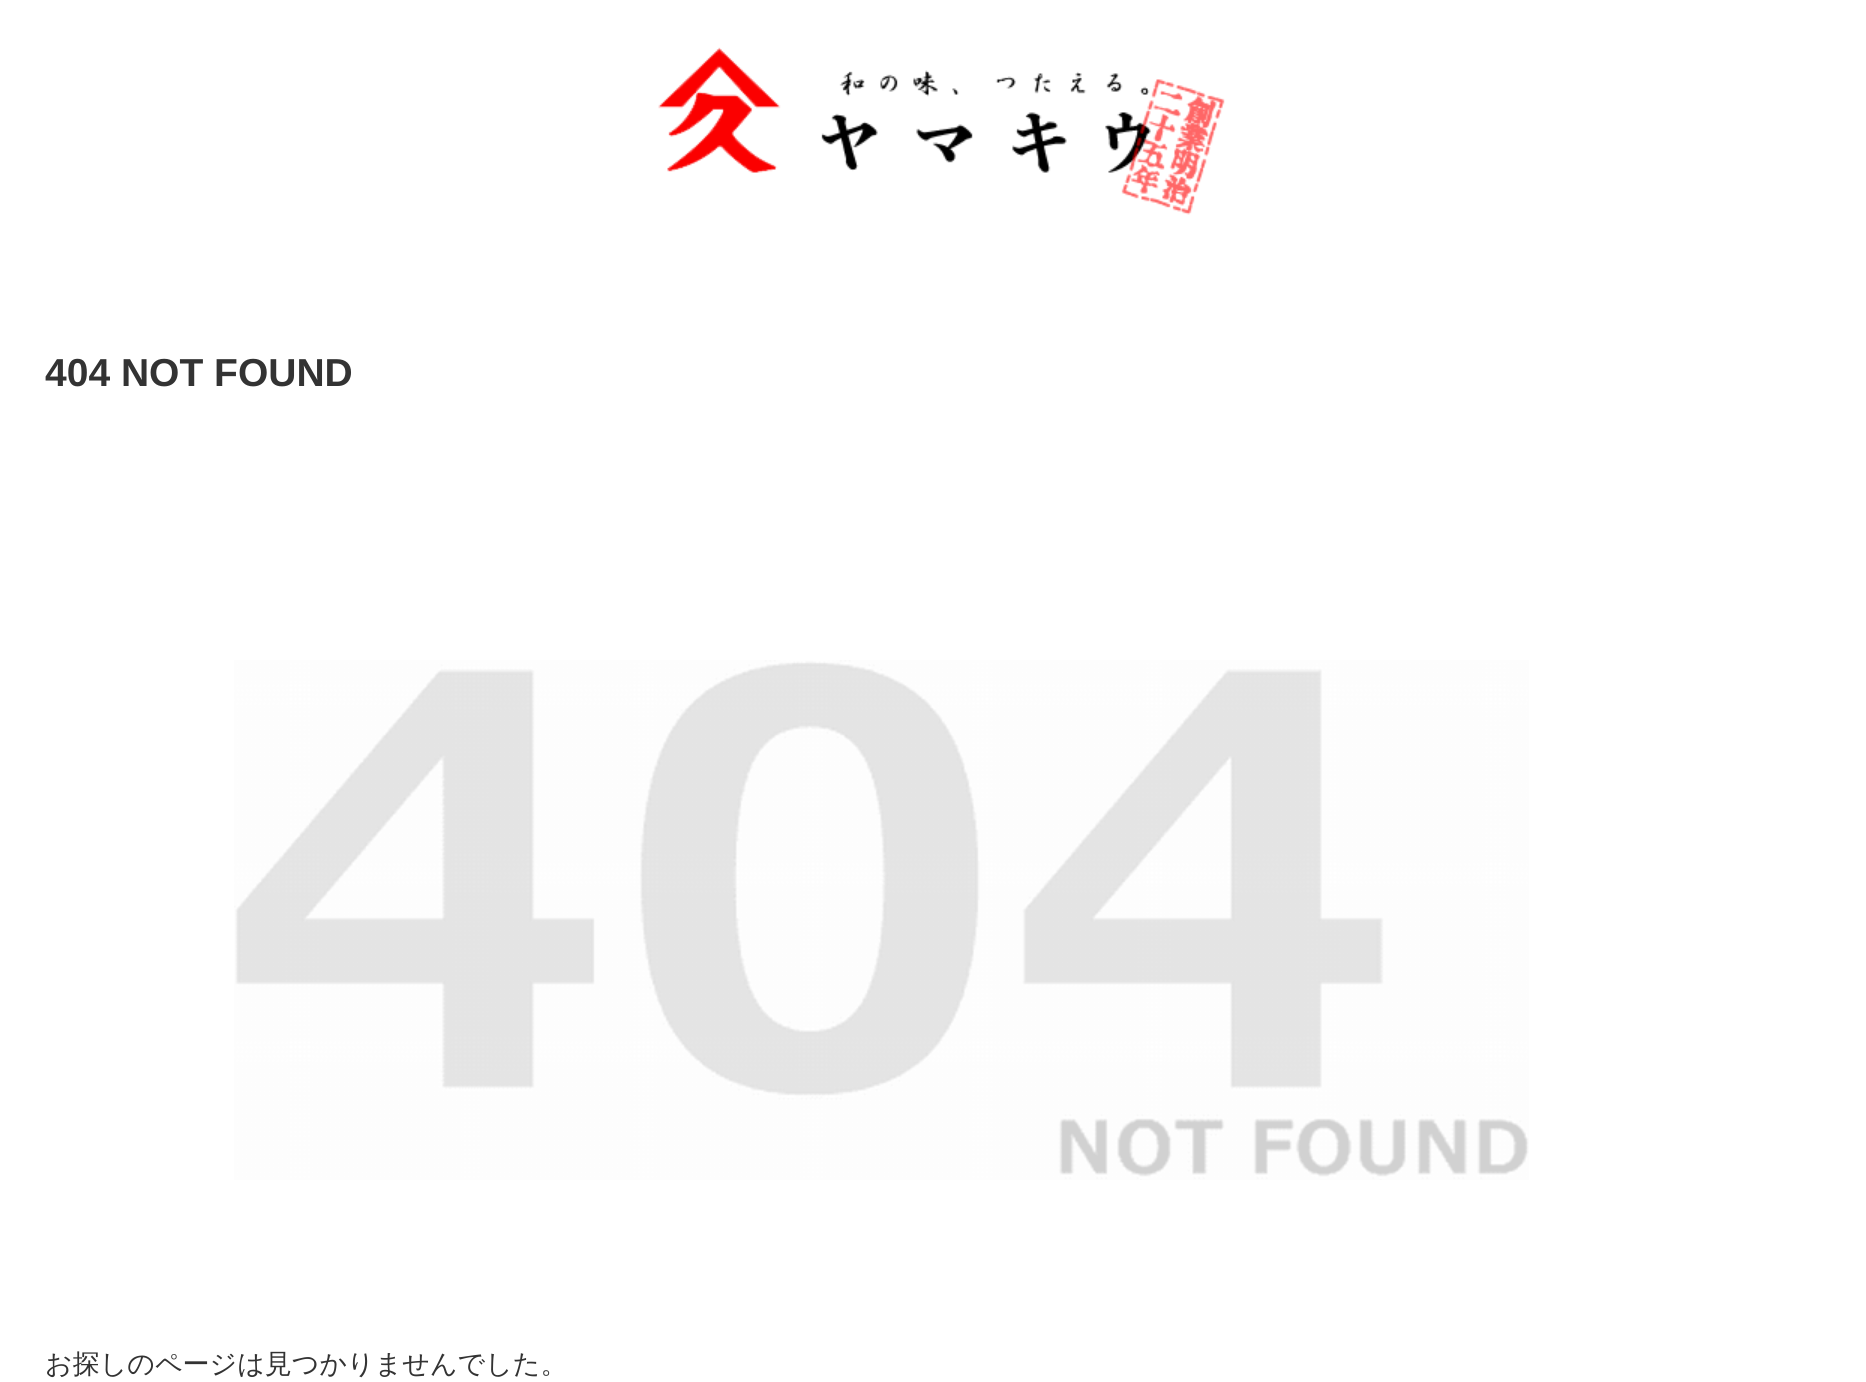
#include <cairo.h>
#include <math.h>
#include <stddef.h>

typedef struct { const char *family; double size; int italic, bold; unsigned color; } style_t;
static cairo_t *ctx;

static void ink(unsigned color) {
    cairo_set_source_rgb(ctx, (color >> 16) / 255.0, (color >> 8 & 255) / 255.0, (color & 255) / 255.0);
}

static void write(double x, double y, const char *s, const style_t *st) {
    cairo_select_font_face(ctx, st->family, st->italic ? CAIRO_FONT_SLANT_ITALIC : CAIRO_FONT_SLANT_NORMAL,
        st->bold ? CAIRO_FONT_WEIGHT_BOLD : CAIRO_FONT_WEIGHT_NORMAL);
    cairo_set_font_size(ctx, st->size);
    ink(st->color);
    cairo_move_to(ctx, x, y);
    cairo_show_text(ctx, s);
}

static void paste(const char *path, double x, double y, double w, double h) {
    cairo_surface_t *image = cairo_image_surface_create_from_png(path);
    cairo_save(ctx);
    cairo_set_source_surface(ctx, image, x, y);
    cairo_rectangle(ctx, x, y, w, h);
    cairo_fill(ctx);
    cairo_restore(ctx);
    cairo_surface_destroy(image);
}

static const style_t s1 = {"Liberation Sans", 39, 0, 1, 0x333333};
static const style_t s2 = {"WenQuanYi Zen Hei Medium", 27, 0, 0, 0x333333};

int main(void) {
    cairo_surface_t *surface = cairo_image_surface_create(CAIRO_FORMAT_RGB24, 1866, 1382);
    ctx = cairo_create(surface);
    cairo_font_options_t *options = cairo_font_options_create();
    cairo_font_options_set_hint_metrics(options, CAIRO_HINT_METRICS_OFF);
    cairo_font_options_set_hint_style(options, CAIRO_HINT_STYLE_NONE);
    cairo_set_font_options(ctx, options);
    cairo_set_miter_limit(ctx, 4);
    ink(0xffffff);
    cairo_paint(ctx);
    paste("pic1.png", 658, 47, 567, 168);
    write(45, 386, "404 NOT FOUND", &s1);
    paste("pic2.png", 234, 660, 1295, 520);
    write(45, 1373, "お探しのページは見つかりませんでした。", &s2);
    cairo_surface_write_to_png(surface, "screenshot.png");
    cairo_font_options_destroy(options);
    cairo_destroy(ctx);
    cairo_surface_destroy(surface);
    return 0;
}
